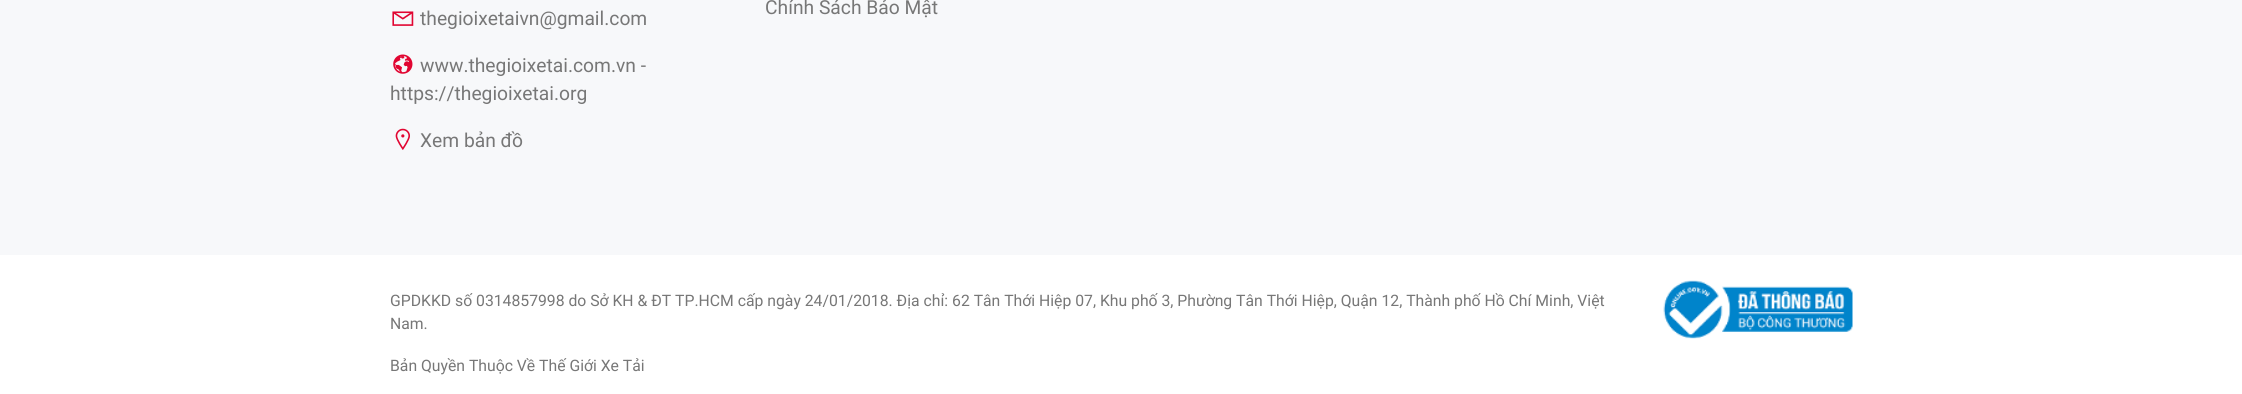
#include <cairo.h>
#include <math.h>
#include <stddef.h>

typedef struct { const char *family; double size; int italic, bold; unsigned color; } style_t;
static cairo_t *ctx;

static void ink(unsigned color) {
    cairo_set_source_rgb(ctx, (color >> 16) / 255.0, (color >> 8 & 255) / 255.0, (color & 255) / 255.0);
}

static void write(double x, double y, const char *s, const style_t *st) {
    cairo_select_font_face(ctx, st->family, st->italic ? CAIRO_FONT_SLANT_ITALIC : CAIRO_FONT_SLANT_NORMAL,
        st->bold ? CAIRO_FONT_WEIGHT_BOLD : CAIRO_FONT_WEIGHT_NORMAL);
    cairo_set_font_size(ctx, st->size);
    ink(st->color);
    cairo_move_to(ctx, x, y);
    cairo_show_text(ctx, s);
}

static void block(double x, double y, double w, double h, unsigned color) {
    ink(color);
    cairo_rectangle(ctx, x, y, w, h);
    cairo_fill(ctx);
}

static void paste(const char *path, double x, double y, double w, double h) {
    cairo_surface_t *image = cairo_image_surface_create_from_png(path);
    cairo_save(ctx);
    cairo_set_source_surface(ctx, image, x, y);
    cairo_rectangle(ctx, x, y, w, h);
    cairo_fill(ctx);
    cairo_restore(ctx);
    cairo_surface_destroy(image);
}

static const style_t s1 = {"Roboto", 19.25, 0, 0, 0x777777};
static const style_t s2 = {"Roboto", 15.75, 0, 0, 0x777777};

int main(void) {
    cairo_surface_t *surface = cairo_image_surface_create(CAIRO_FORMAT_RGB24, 2242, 394);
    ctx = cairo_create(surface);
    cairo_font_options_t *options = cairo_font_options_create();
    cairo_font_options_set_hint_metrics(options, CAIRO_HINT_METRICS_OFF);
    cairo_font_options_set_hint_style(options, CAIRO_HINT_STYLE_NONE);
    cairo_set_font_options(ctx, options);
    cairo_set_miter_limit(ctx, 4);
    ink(0xf7f8fa);
    cairo_paint(ctx);
    paste("pic1.png", 392, 11, 22, 15);
    write(420, 25, "thegioixetaivn@gmail.com", &s1);
    paste("pic2.png", 393, 54, 20, 20);
    write(420, 72, "www.thegioixetai.com.vn -", &s1);
    write(390, 100, "https://thegioixetai.org", &s1);
    paste("pic3.png", 395, 128, 15, 22);
    write(420, 147, "Xem bản đồ", &s1);
    write(765, 14, "Chính Sách Bảo Mật", &s1);
    block(0, 255, 2242, 139, 0xffffff);
    write(390, 306, "GPDKKD số 0314857998 do Sở KH & ĐT TP.HCM cấp ngày 24/01/2018. Địa chỉ: 62 Tân Thới Hiệp 07, Khu phố 3, Phường Tân Thới Hiệp, Quận 12, Thành phố Hồ Chí Minh, Việt", &s2);
    write(390, 329, "Nam.", &s2);
    write(390, 371, "Bản Quyền Thuộc Về Thế Giới Xe Tải", &s2);
    paste("pic4.png", 1663, 280, 190, 59);
    cairo_surface_write_to_png(surface, "screenshot.png");
    cairo_font_options_destroy(options);
    cairo_destroy(ctx);
    cairo_surface_destroy(surface);
    return 0;
}
